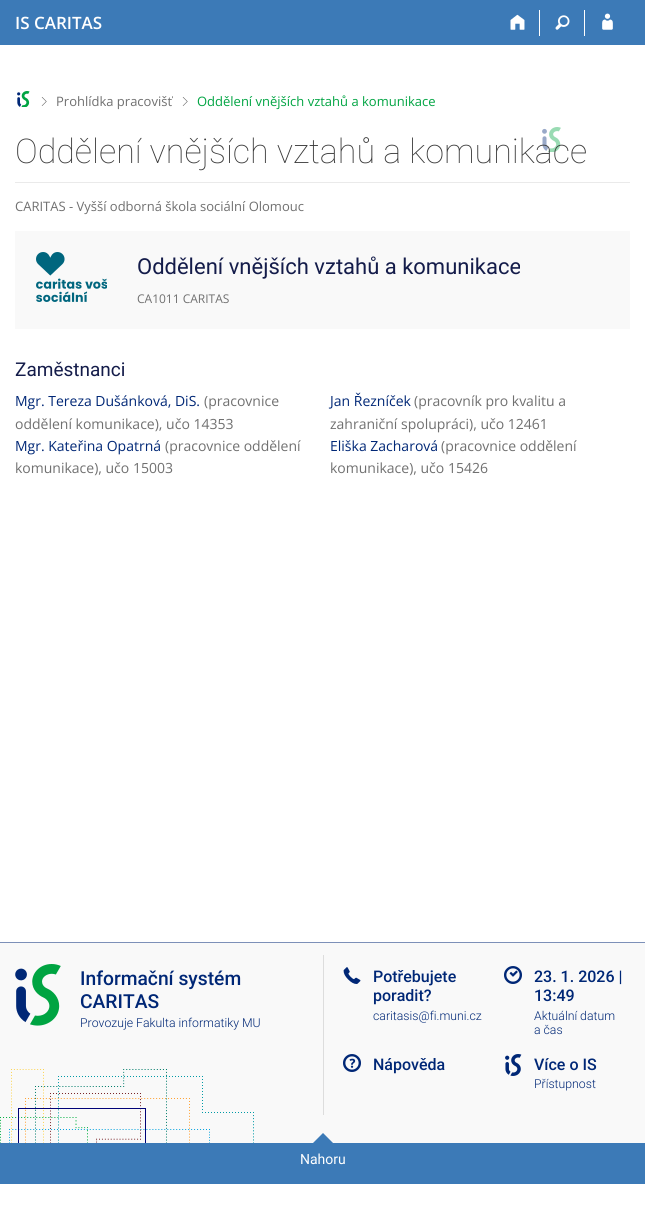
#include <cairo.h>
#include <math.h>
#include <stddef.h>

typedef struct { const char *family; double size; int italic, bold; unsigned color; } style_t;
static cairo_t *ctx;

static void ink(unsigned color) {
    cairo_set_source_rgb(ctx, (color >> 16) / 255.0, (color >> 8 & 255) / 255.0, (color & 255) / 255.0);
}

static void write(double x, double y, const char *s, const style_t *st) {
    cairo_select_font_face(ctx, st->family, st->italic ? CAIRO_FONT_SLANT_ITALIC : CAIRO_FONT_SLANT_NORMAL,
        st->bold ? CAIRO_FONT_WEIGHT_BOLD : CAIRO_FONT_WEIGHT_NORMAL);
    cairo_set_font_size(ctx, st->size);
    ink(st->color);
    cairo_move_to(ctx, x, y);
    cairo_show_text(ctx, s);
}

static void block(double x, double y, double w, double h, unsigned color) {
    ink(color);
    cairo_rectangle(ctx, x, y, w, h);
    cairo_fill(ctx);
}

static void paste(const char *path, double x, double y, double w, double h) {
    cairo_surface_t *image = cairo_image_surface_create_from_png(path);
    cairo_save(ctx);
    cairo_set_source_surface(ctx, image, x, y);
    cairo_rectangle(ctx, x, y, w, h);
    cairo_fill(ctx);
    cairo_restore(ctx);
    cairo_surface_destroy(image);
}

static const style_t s1 = {"Open Sans SemiBold", 17, 0, 0, 0xffffff};
static const style_t s2 = {"Open Sans", 13, 0, 0, 0x707070};
static const style_t s3 = {"Open Sans", 13, 0, 0, 0x00a442};
static const style_t s4 = {"Roboto Thin", 34, 0, 0, 0x3a3a3a};
static const style_t s5 = {"Roboto", 22, 0, 0, 0x141c4a};
static const style_t s6 = {"Open Sans", 12, 0, 0, 0x707070};
static const style_t s7 = {"Roboto", 19, 0, 0, 0x141c4a};
static const style_t s8 = {"Open Sans", 14, 0, 0, 0x002776};
static const style_t s9 = {"Open Sans", 14, 0, 0, 0x707070};
static const style_t s10 = {"Roboto Medium", 19.25, 0, 0, 0x002776};
static const style_t s11 = {"Roboto Light", 12.25, 0, 0, 0x002776};
static const style_t s12 = {"Roboto Medium", 16, 0, 0, 0x002776};
static const style_t s13 = {"Roboto", 14, 0, 0, 0xffffff};

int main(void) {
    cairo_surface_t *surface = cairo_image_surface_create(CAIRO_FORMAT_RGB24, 645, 1211);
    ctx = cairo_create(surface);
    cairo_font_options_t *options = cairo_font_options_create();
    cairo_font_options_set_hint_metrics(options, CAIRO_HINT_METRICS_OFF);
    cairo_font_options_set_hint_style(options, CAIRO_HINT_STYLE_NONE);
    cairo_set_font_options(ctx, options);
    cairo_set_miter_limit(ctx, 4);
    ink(0xffffff);
    cairo_paint(ctx);
    block(0, 0, 645, 45, 0x3c7ab7);
    write(15, 29, "IS CARITAS", &s1);
    block(539, 10, 1, 26, 0xffffff);
    paste("pic1.png", 510, 14, 15, 16);
    block(584, 10, 1, 26, 0xffffff);
    paste("pic2.png", 555, 15, 15, 15);
    paste("pic3.png", 602, 13, 11, 17);
    paste("pic4.png", 17, 91, 13, 16);
    paste("pic5.png", 41, 97, 6, 9);
    write(56, 106, "Prohlídka pracovišť", &s2);
    paste("pic5.png", 182, 97, 6, 9);
    write(197, 106, "Oddělení vnějších vztahů a komunikace", &s3);
    paste("pic6.png", 542, 127, 19, 25);
    write(15, 163, "Oddělení vnějších vztahů a komunikace", &s4);
    block(15, 182, 615, 1, 0xeaeaea);
    write(15, 211, "CARITAS - Vyšší odborná škola sociální Olomouc", &s2);
    block(15, 231, 615, 98, 0xf9f9f9);
    paste("pic7.png", 36, 252, 71, 50);
    write(137, 274, "Oddělení vnějších vztahů a komunikace", &s5);
    write(137, 303, "CA1011 CARITAS", &s6);
    write(15, 376, "Zaměstnanci", &s7);
    write(15, 406, "Mgr. Tereza Dušánková, DiS.", &s8);
    write(204, 406, "(pracovnice", &s9);
    write(15, 429, "oddělení komunikace), učo 14353", &s9);
    write(330, 406, "Jan Řezníček", &s8);
    write(414, 406, "(pracovník pro kvalitu a", &s9);
    write(330, 429, "zahraniční spolupráci), učo 12461", &s9);
    write(15, 451, "Mgr. Kateřina Opatrná", &s8);
    write(165, 451, "(pracovnice oddělení", &s9);
    write(15, 473, "komunikace), učo 15003", &s9);
    write(330, 451, "Eliška Zacharová", &s8);
    write(441, 451, "(pracovnice oddělení", &s9);
    write(330, 473, "komunikace), učo 15426", &s9);
    block(0, 943, 645, 200, 0xf9f9f9);
    block(0, 942, 645, 1, 0x7d90b8);
    paste("pic8.png", 0, 1069, 254, 74);
    paste("pic9.png", 15, 964, 46, 62);
    write(80, 985, "Informační systém", &s10);
    write(80, 1008, "CARITAS", &s10);
    write(80, 1027, "Provozuje Fakulta informatiky MU", &s11);
    block(323, 955, 1, 160, 0xdddddd);
    paste("pic10.png", 343, 967, 18, 17);
    write(373, 982, "Potřebujete", &s12);
    write(373, 1001, "poradit?", &s12);
    write(373, 1020, "caritasis@fi.muni.cz", &s11);
    paste("pic11.png", 343, 1054, 18, 18);
    write(373, 1070, "Nápověda", &s12);
    paste("pic12.png", 504, 966, 18, 18);
    write(534, 982, "23. 1. 2026 |", &s12);
    write(534, 1001, "13:49", &s12);
    write(534, 1020, "Aktuální datum", &s11);
    write(534, 1034, "a čas", &s11);
    paste("pic13.png", 505, 1054, 17, 22);
    write(534, 1070, "Více o IS", &s12);
    write(534, 1088, "Přístupnost", &s11);
    block(0, 1143, 645, 41, 0x3c7ab7);
    cairo_new_path(ctx);
    cairo_move_to(ctx, 334, 1144);
    cairo_line_to(ctx, 312, 1144);
    cairo_line_to(ctx, 323, 1133);
    cairo_close_path(ctx);
    cairo_fill(ctx);
    write(300, 1164, "Nahoru", &s13);
    cairo_surface_write_to_png(surface, "screenshot.png");
    cairo_font_options_destroy(options);
    cairo_destroy(ctx);
    cairo_surface_destroy(surface);
    return 0;
}
